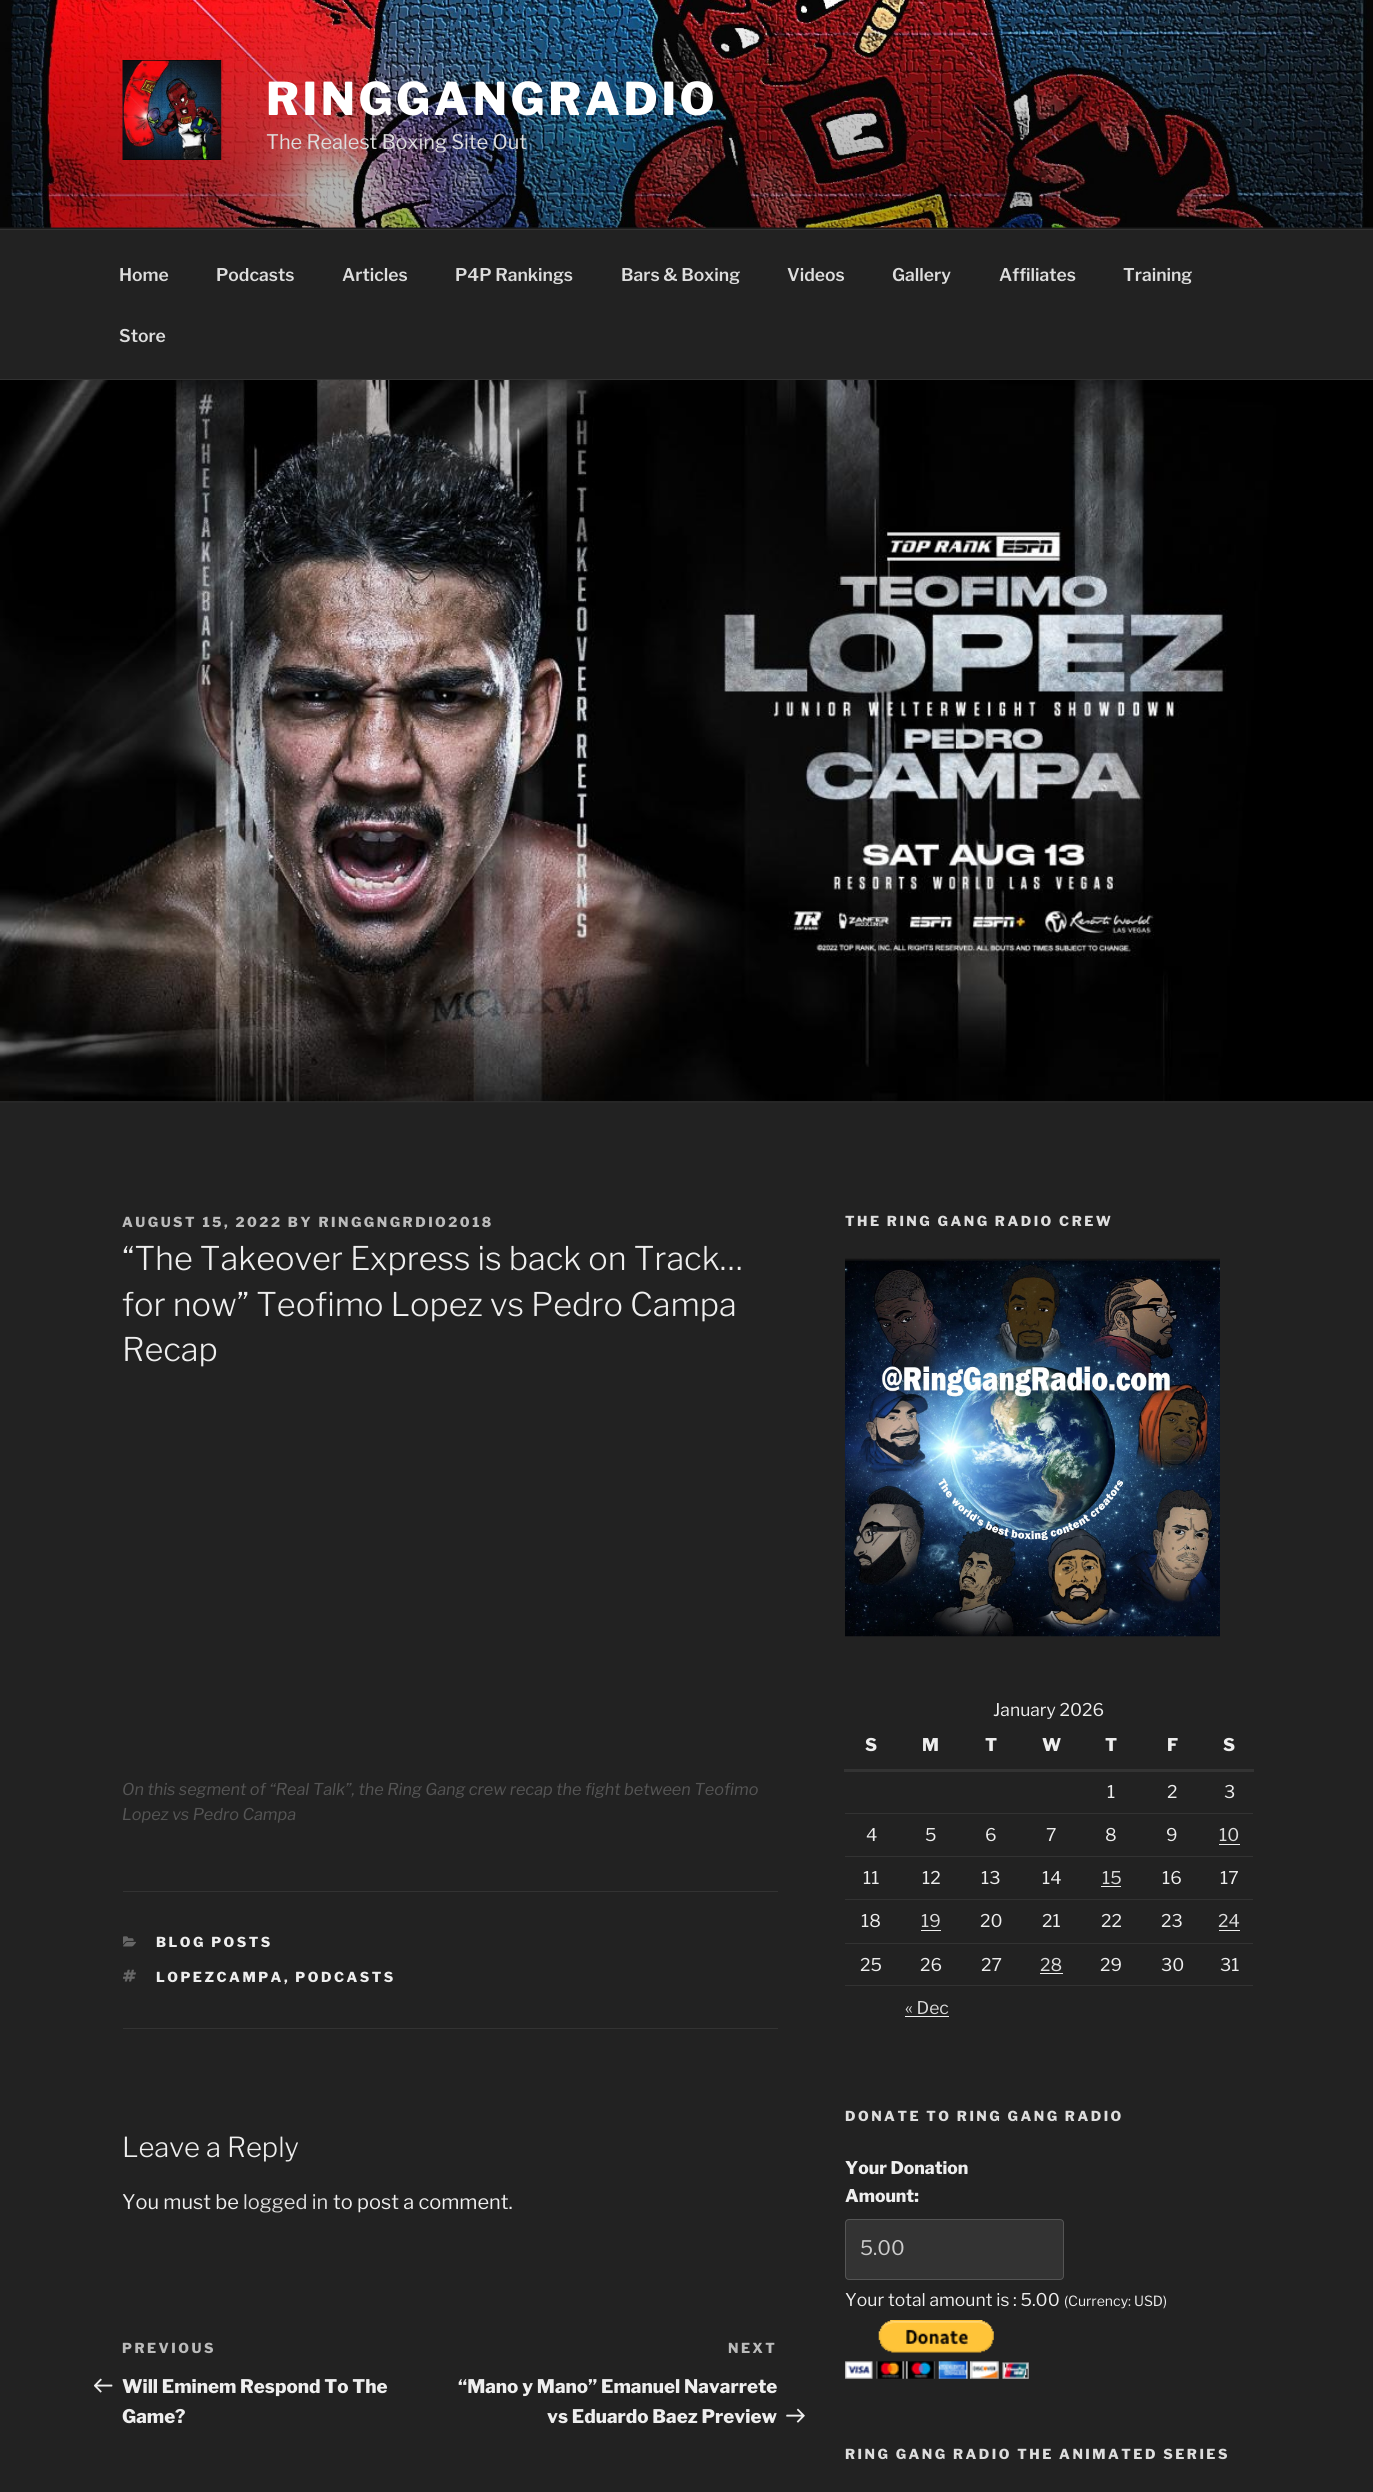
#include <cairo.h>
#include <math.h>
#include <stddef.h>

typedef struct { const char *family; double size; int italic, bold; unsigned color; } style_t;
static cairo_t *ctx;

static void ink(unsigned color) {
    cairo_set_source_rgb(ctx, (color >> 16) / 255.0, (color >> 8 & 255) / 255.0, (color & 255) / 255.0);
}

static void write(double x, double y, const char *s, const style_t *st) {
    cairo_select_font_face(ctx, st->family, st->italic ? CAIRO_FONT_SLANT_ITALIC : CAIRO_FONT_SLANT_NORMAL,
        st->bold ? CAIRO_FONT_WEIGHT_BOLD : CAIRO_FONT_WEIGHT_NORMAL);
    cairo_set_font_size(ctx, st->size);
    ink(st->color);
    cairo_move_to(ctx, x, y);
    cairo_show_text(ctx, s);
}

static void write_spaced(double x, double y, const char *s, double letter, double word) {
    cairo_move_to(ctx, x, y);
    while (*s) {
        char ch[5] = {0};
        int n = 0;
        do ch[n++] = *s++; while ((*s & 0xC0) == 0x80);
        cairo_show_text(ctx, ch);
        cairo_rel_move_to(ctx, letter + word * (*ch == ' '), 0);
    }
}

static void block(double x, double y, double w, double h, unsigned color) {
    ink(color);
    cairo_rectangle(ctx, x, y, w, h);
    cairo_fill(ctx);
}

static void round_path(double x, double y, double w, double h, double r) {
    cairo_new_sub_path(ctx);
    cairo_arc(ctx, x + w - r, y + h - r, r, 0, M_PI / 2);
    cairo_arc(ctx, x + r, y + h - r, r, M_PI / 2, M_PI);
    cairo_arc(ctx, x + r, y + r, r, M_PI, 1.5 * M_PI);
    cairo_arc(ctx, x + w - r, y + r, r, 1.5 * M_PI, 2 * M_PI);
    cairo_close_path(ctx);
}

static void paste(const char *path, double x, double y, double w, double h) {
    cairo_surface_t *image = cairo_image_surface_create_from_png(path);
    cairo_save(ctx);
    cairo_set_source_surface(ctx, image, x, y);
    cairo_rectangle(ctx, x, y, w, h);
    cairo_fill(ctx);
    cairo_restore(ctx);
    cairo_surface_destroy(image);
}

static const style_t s1 = {"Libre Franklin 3 Thin", 20, 0, 0, 0xdddddd};
static const style_t s2 = {"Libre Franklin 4 Thin", 17.5, 0, 0, 0xdddddd};
static const style_t s3 = {"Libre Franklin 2 Thin", 32.5, 0, 0, 0xeeeeee};
static const style_t s4 = {"Libre Franklin Thin", 16.25, 1, 0, 0x555555};
static const style_t s5 = {"Libre Franklin 2 Thin", 27.5, 0, 0, 0xeeeeee};
static const style_t s6 = {"Libre Franklin 3 Thin", 20, 0, 0, 0xeeeeee};
static const style_t s7 = {"Libre Franklin Thin", 18.75, 0, 0, 0xeeeeee};
static const style_t s8 = {"Libre Franklin 3 Thin", 17.5, 0, 0, 0xeeeeee};
static const style_t s9 = {"Libre Franklin Thin", 17.5, 0, 0, 0xeeeeee};
static const style_t s10 = {"Libre Franklin 3 Thin", 17.5, 0, 0, 0xdddddd};
static const style_t s11 = {"Libre Franklin 3 Thin", 20, 0, 0, 0xcccccc};
static const style_t s12 = {"Libre Franklin 3 Thin", 14, 0, 0, 0xeeeeee};

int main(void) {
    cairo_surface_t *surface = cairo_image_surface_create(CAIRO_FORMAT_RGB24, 1373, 2492);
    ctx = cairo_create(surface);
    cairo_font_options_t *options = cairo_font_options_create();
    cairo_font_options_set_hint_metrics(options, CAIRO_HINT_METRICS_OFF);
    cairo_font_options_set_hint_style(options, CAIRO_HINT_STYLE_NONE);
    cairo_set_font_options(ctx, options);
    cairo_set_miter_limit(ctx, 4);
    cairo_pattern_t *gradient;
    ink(0x222222);
    cairo_paint(ctx);
    block(0, 227, 1373, 2, 0x262626);
    paste("pic1.png", 0, 0, 1373, 228);
    gradient = cairo_pattern_create_linear(687, 0, 687, 229);
    cairo_pattern_add_color_stop_rgba(gradient, 0, 0, 0, 0, 0);
    cairo_pattern_add_color_stop_rgba(gradient, 0.75, 0, 0, 0, 0.3);
    cairo_pattern_add_color_stop_rgba(gradient, 1, 0, 0, 0, 0.3);
    cairo_set_source(ctx, gradient);
    cairo_pattern_destroy(gradient);
    cairo_rectangle(ctx, 0, 12, 1373, 217);
    cairo_fill(ctx);
    paste("pic2.png", 122, 60, 100, 100);
    cairo_select_font_face(ctx, "Libre Franklin Thin", CAIRO_FONT_SLANT_NORMAL, CAIRO_FONT_WEIGHT_NORMAL);
    cairo_set_font_size(ctx, 45);
    ink(0xffffff);
    write_spaced(266, 115, "RINGGANGRADIO", 3.6, 0);
    write(266, 149, "The Realest Boxing Site Out", &s1);
    block(0, 229, 1373, 1, 0x333333);
    block(0, 379, 1373, 1, 0x333333);
    write(119, 281, "Home", &s2);
    write(216, 281, "Podcasts", &s2);
    write(342, 281, "Articles", &s2);
    write(455, 281, "P4P Rankings", &s2);
    write(621, 281, "Bars & Boxing", &s2);
    write(787, 281, "Videos", &s2);
    write(892, 281, "Gallery", &s2);
    write(999, 281, "Affiliates", &s2);
    write(1123, 281, "Training", &s2);
    write(119, 342, "Store", &s2);
    block(0, 1102, 1373, 1, 0x262626);
    block(0, 1101, 1373, 1, 0x333333);
    paste("pic3.png", 0, 380, 1373, 722);
    cairo_select_font_face(ctx, "Libre Franklin Thin", CAIRO_FONT_SLANT_NORMAL, CAIRO_FONT_WEIGHT_NORMAL);
    cairo_set_font_size(ctx, 13.75);
    ink(0xbbbbbb);
    write_spaced(122, 1227, "AUGUST 15, 2022 BY RINGGNGRDIO2018", 2.5, 0);
    write(122, 1270, "“The Takeover Express is back on Track…", &s3);
    write(122, 1316, "for now” Teofimo Lopez vs Pedro Campa", &s3);
    write(122, 1361, "Recap", &s3);
    write(122, 1795, "On this segment of “Real Talk”, the Ring Gang crew recap the fight between Teofimo", &s4);
    write(122, 1820, "Lopez vs Pedro Campa", &s4);
    block(123, 1891, 655, 1, 0x333333);
    block(123, 2028, 655, 1, 0x333333);
    paste("pic4.png", 123, 1936, 13, 11);
    cairo_select_font_face(ctx, "Libre Franklin Thin", CAIRO_FONT_SLANT_NORMAL, CAIRO_FONT_WEIGHT_NORMAL);
    cairo_set_font_size(ctx, 13.75);
    ink(0xeeeeee);
    write_spaced(156, 1947, "BLOG POSTS", 2.5, 0);
    paste("pic5.png", 123, 1969, 13, 13);
    write_spaced(156, 1982, "LOPEZCAMPA, PODCASTS", 2.5, 0);
    write(122, 2157, "Leave a Reply", &s5);
    write(122, 2209, "You must be", &s6);
    write(243, 2209, "logged in", &s1);
    write(333, 2209, "to post a comment.", &s6);
    cairo_select_font_face(ctx, "Libre Franklin Thin", CAIRO_FONT_SLANT_NORMAL, CAIRO_FONT_WEIGHT_NORMAL);
    cairo_set_font_size(ctx, 13.75);
    ink(0xbbbbbb);
    write_spaced(122, 2353, "PREVIOUS", 2.5, 0);
    paste("pic6.png", 94, 2378, 19, 15);
    write(122, 2393, "Will Eminem Respond To The", &s7);
    write(122, 2423, "Game?", &s7);
    cairo_set_font_size(ctx, 13.75);
    ink(0xbbbbbb);
    write_spaced(728, 2353, "NEXT", 2.5, 0);
    write(458, 2393, "“Mano y Mano” Emanuel Navarrete", &s7);
    write(547, 2423, "vs Eduardo Baez Preview", &s7);
    paste("pic7.png", 786, 2408, 19, 15);
    cairo_set_font_size(ctx, 13.75);
    ink(0xdddddd);
    write_spaced(845, 1226, "THE RING GANG RADIO CREW", 2.5, 0);
    paste("pic8.png", 845, 1258, 375, 379);
    write(993, 1716, "January 2026", &s8);
    write(865, 1751, "S", &s9);
    write(922, 1751, "M", &s9);
    write(985, 1751, "T", &s9);
    write(1042, 1751, "W", &s9);
    write(1105, 1751, "T", &s9);
    write(1167, 1751, "F", &s9);
    block(844, 1769, 410, 3, 0x333333);
    write(1223, 1751, "S", &s9);
    block(845, 1813, 408, 1, 0x333333);
    write(1107, 1798, "1", &s8);
    write(1167, 1798, "2", &s8);
    write(1224, 1798, "3", &s8);
    block(845, 1856, 408, 1, 0x333333);
    write(866, 1841, "4", &s8);
    write(925, 1841, "5", &s8);
    write(985, 1841, "6", &s8);
    write(1046, 1841, "7", &s8);
    write(1105, 1841, "8", &s8);
    write(1166, 1841, "9", &s8);
    write(1219, 1841, "10", &s10);
    block(1219, 1844, 21, 1, 0xf0f0f0);
    block(845, 1899, 408, 1, 0x333333);
    write(863, 1884, "11", &s8);
    write(922, 1884, "12", &s8);
    write(981, 1884, "13", &s8);
    write(1042, 1884, "14", &s8);
    write(1102, 1884, "15", &s10);
    block(1101, 1886, 20, 1, 0xf0f0f0);
    write(1162, 1884, "16", &s8);
    write(1220, 1884, "17", &s8);
    block(845, 1943, 408, 1, 0x333333);
    write(861, 1927, "18", &s8);
    write(921, 1927, "19", &s10);
    block(921, 1930, 20, 1, 0xf0f0f0);
    write(980, 1927, "20", &s8);
    write(1042, 1927, "21", &s8);
    write(1101, 1927, "22", &s8);
    write(1161, 1927, "23", &s8);
    write(1218, 1927, "24", &s10);
    block(1219, 1930, 21, 1, 0xf0f0f0);
    block(845, 1985, 408, 1, 0x333333);
    write(860, 1971, "25", &s8);
    write(920, 1971, "26", &s8);
    write(981, 1971, "27", &s8);
    write(1040, 1971, "28", &s10);
    block(1040, 1973, 23, 1, 0xf0f0f0);
    write(1100, 1971, "29", &s8);
    write(1161, 1971, "30", &s8);
    write(1220, 1971, "31", &s8);
    write(905, 2014, "« Dec", &s10);
    block(905, 2016, 44, 1, 0xf0f0f0);
    cairo_select_font_face(ctx, "Libre Franklin Thin", CAIRO_FONT_SLANT_NORMAL, CAIRO_FONT_WEIGHT_NORMAL);
    cairo_set_font_size(ctx, 13.75);
    ink(0xdddddd);
    write_spaced(845, 2121, "DONATE TO RING GANG RADIO", 2.5, 0);
    write(845, 2174, "Your Donation", &s9);
    write(845, 2202, "Amount:", &s9);
    ink(0x333333);
    round_path(845.5, 2219.5, 218, 60, 3.5);
    cairo_fill_preserve(ctx);
    ink(0x555555);
    cairo_set_line_width(ctx, 1);
    cairo_stroke(ctx);
    write(860, 2255, "5.00", &s11);
    write(845, 2306, "Your total amount is : 5.00", &s8);
    write(1064, 2306, "(Currency: USD)", &s12);
    paste("pic9.png", 845, 2320, 184, 59);
    cairo_select_font_face(ctx, "Libre Franklin Thin", CAIRO_FONT_SLANT_NORMAL, CAIRO_FONT_WEIGHT_NORMAL);
    cairo_set_font_size(ctx, 13.75);
    ink(0xdddddd);
    write_spaced(845, 2459, "RING GANG RADIO THE ANIMATED SERIES", 2.5, 0);
    cairo_surface_write_to_png(surface, "screenshot.png");
    cairo_font_options_destroy(options);
    cairo_destroy(ctx);
    cairo_surface_destroy(surface);
    return 0;
}
